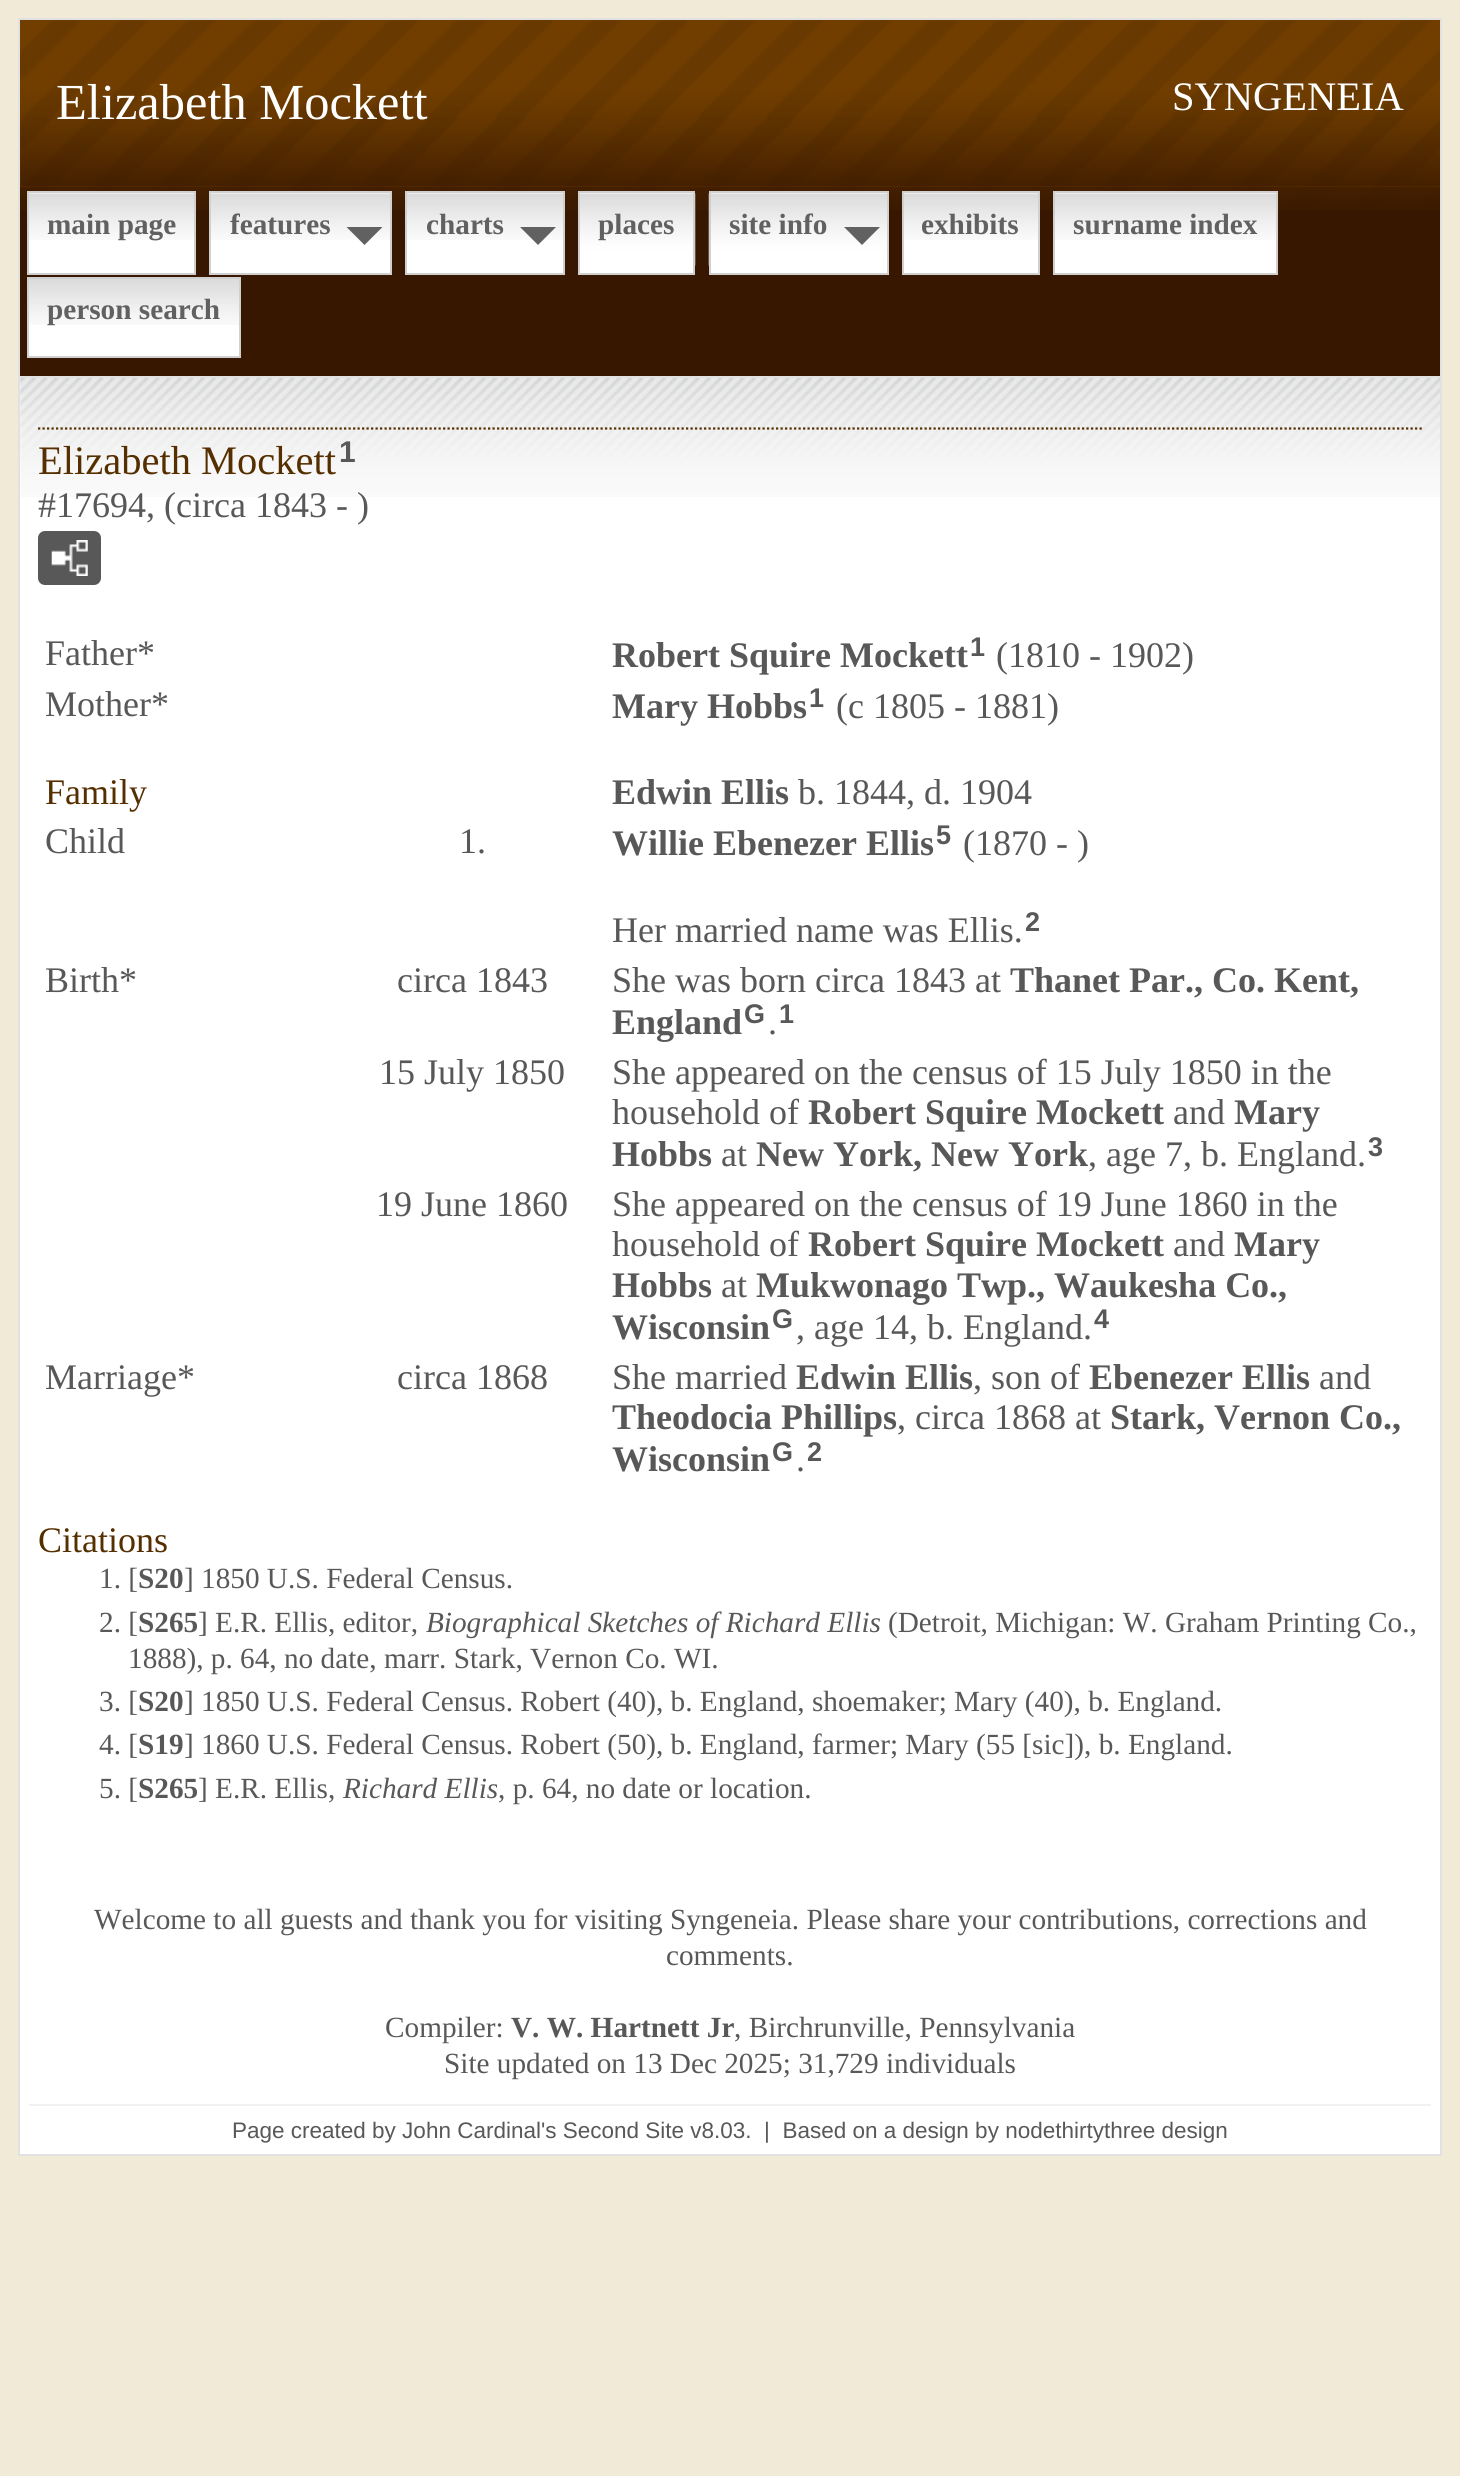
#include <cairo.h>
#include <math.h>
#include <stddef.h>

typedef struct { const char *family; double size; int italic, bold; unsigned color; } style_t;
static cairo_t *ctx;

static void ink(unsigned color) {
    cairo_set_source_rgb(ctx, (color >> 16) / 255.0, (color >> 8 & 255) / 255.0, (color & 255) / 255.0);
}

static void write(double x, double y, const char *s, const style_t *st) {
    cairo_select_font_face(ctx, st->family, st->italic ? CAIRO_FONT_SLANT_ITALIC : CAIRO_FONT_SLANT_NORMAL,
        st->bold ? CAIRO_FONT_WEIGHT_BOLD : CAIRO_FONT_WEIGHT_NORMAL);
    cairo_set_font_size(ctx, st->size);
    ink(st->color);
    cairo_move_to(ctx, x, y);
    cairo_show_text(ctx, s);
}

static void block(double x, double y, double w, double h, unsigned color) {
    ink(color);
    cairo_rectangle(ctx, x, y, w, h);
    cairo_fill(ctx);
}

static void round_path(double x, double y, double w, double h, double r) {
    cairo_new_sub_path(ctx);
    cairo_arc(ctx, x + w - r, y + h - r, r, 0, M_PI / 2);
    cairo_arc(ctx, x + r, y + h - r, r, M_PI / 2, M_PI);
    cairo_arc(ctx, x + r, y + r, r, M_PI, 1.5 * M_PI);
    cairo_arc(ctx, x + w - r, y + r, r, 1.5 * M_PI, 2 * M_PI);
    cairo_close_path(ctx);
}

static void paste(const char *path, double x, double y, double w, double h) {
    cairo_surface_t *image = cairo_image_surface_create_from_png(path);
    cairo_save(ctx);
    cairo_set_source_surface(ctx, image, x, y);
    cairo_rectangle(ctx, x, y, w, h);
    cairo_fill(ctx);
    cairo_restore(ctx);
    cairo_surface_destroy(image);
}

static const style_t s1 = {"Liberation Serif", 50.5, 0, 0, 0xffffff};
static const style_t s2 = {"Liberation Serif", 40.5, 0, 0, 0xffffff};
static const style_t s3 = {"Liberation Serif", 29.25, 0, 1, 0x616161};
static const style_t s4 = {"Liberation Serif", 40.5, 0, 0, 0x562f00};
static const style_t s5 = {"Liberation Sans", 30, 0, 1, 0x585858};
static const style_t s6 = {"Liberation Serif", 36, 0, 0, 0x585858};
static const style_t s7 = {"Liberation Serif", 36, 0, 1, 0x585858};
static const style_t s8 = {"Liberation Sans", 27, 0, 1, 0x585858};
static const style_t s9 = {"Liberation Serif", 36, 0, 0, 0x562f00};
static const style_t s10 = {"Liberation Serif", 29.25, 0, 0, 0x585858};
static const style_t s11 = {"Liberation Serif", 29.25, 0, 1, 0x585858};
static const style_t s12 = {"Liberation Serif", 29.25, 1, 0, 0x585858};
static const style_t s13 = {"Liberation Sans", 22.5, 0, 0, 0x585858};

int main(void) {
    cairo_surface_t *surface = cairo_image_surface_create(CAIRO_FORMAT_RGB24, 1460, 2476);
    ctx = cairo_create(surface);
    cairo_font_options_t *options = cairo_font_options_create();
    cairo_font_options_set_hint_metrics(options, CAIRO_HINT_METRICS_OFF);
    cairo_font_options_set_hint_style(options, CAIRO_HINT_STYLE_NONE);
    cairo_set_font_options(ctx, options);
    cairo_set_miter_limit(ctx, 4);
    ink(0xf0ead6);
    cairo_paint(ctx);
    block(20, 378, 1420, 1776, 0xffffff);
    cairo_rectangle(ctx, 19, 19, 1422, 2136);
    ink(0xe1e1e1);
    cairo_stroke(ctx);
    block(20, 20, 1420, 167, 0x713e00);
    paste("pic1.png", 20, 20, 1420, 167);
    write(56, 119, "Elizabeth Mockett", &s1);
    write(1172, 110, "SYNGENEIA", &s2);
    block(20, 187, 1420, 189, 0x371700);
    paste("pic2.png", 20, 187, 1420, 23);
    block(29, 193, 165, 80, 0xffffff);
    paste("pic3.png", 29, 193, 165, 47);
    cairo_rectangle(ctx, 28, 192, 167, 82);
    ink(0xd0d0d0);
    cairo_stroke(ctx);
    write(47, 234, "main page", &s3);
    block(211, 193, 179, 80, 0xffffff);
    paste("pic4.png", 211, 193, 179, 47);
    cairo_rectangle(ctx, 210, 192, 181, 82);
    ink(0xd0d0d0);
    cairo_stroke(ctx);
    write(230, 234, "features", &s3);
    cairo_new_path(ctx);
    cairo_move_to(ctx, 346.5, 227);
    cairo_line_to(ctx, 382.5, 227);
    cairo_line_to(ctx, 364.5, 245);
    cairo_close_path(ctx);
    cairo_fill(ctx);
    block(407, 193, 156, 80, 0xffffff);
    paste("pic5.png", 407, 193, 156, 47);
    cairo_rectangle(ctx, 406, 192, 158, 82);
    ink(0xd0d0d0);
    cairo_stroke(ctx);
    write(426, 234, "charts", &s3);
    cairo_new_path(ctx);
    cairo_move_to(ctx, 520, 227);
    cairo_line_to(ctx, 556, 227);
    cairo_line_to(ctx, 538, 245);
    cairo_close_path(ctx);
    cairo_fill(ctx);
    block(580, 193, 113, 80, 0xffffff);
    paste("pic6.png", 580, 193, 116, 73);
    cairo_rectangle(ctx, 579, 192, 115, 82);
    ink(0xd0d0d0);
    cairo_stroke(ctx);
    write(598, 234, "places", &s3);
    block(711, 193, 176, 80, 0xffffff);
    paste("pic7.png", 708, 193, 179, 73);
    cairo_rectangle(ctx, 710, 192, 178, 82);
    ink(0xd0d0d0);
    cairo_stroke(ctx);
    write(729, 234, "site info", &s3);
    cairo_new_path(ctx);
    cairo_move_to(ctx, 844, 227);
    cairo_line_to(ctx, 880, 227);
    cairo_line_to(ctx, 862, 245);
    cairo_close_path(ctx);
    cairo_fill(ctx);
    block(904, 193, 134, 80, 0xffffff);
    paste("pic8.png", 904, 193, 134, 47);
    cairo_rectangle(ctx, 903, 192, 136, 82);
    ink(0xd0d0d0);
    cairo_stroke(ctx);
    write(921, 234, "exhibits", &s3);
    block(1055, 193, 221, 80, 0xffffff);
    paste("pic9.png", 1055, 193, 221, 47);
    cairo_rectangle(ctx, 1054, 192, 223, 82);
    ink(0xd0d0d0);
    cairo_stroke(ctx);
    write(1073, 234, "surname index", &s3);
    block(29, 325, 210, 31, 0xffffff);
    paste("pic10.png", 29, 279, 210, 46);
    cairo_rectangle(ctx, 28, 278, 212, 79);
    ink(0xd0d0d0);
    cairo_stroke(ctx);
    write(47, 319, "person search", &s3);
    paste("pic11.png", 20, 378, 1420, 119);
    block(20, 376, 1420, 2, 0xe1e1e1);
    cairo_new_path(ctx);
    cairo_move_to(ctx, 38, 428.5);
    cairo_line_to(ctx, 1422, 428.5);
    ink(0x562f00);
    cairo_set_line_width(ctx, 2.2);
    cairo_set_dash(ctx, (double[]){2.25, 2.25}, 2, 0);
    cairo_stroke(ctx);
    write(38, 474, "Elizabeth Mockett", &s4);
    write(339, 462, "1", &s5);
    write(38, 517, "#17694, (circa 1843 - )", &s6);
    round_path(38, 531, 63, 54, 7);
    cairo_fill(ctx);
    paste("pic12.png", 51, 540, 37, 36);
    write(45, 665, "Father*", &s6);
    write(612, 667, "Robert Squire Mockett", &s7);
    write(970, 656, "1", &s8);
    write(996, 667, "(1810 - 1902)", &s6);
    write(45, 716, "Mother*", &s6);
    write(612, 718, "Mary Hobbs", &s7);
    write(809, 707, "1", &s8);
    write(836, 718, "(c 1805 - 1881)", &s6);
    write(45, 804, "Family", &s9);
    write(612, 804, "Edwin Ellis", &s7);
    write(798, 804, "b. 1844, d. 1904", &s6);
    write(45, 853, "Child", &s6);
    write(459, 853, "1.", &s6);
    write(612, 855, "Willie Ebenezer Ellis", &s7);
    write(936, 844, "5", &s8);
    write(963, 855, "(1870 - )", &s6);
    write(612, 942, "Her married name was Ellis.", &s6);
    write(1025, 931, "2", &s8);
    write(45, 992, "Birth*", &s6);
    write(397, 992, "circa 1843", &s6);
    write(612, 992, "She was born circa 1843 at", &s6);
    write(1010, 992, "Thanet Par., Co. Kent,", &s7);
    write(612, 1034, "England", &s7);
    write(744, 1023, "G", &s8);
    write(768, 1034, ".", &s6);
    write(779, 1023, "1", &s8);
    write(379, 1084, "15 July 1850", &s6);
    write(612, 1084, "She appeared on the census of 15 July 1850 in the", &s6);
    write(612, 1124, "household of", &s6);
    write(808, 1124, "Robert Squire Mockett", &s7);
    write(1173, 1124, "and", &s6);
    write(1234, 1124, "Mary", &s7);
    write(612, 1166, "Hobbs", &s7);
    write(721, 1166, "at", &s6);
    write(756, 1166, "New York, New York", &s7);
    write(1088, 1166, ", age 7, b. England.", &s6);
    write(1368, 1156, "3", &s8);
    write(376, 1216, "19 June 1860", &s6);
    write(612, 1216, "She appeared on the census of 19 June 1860 in the", &s6);
    write(612, 1256, "household of", &s6);
    write(808, 1256, "Robert Squire Mockett", &s7);
    write(1173, 1256, "and", &s6);
    write(1234, 1256, "Mary", &s7);
    write(612, 1297, "Hobbs", &s7);
    write(721, 1297, "at", &s6);
    write(756, 1297, "Mukwonago Twp., Waukesha Co.,", &s7);
    write(612, 1339, "Wisconsin", &s7);
    write(772, 1328, "G", &s8);
    write(796, 1339, ", age 14, b. England.", &s6);
    write(1094, 1328, "4", &s8);
    write(45, 1389, "Marriage*", &s6);
    write(397, 1389, "circa 1868", &s6);
    write(612, 1389, "She married", &s6);
    write(796, 1389, "Edwin Ellis", &s7);
    write(973, 1389, ", son of", &s6);
    write(1089, 1389, "Ebenezer Ellis", &s7);
    write(1319, 1389, "and", &s6);
    write(612, 1429, "Theodocia Phillips", &s7);
    write(897, 1429, ", circa 1868 at", &s6);
    write(1110, 1429, "Stark, Vernon Co.,", &s7);
    write(612, 1471, "Wisconsin", &s7);
    write(772, 1461, "G", &s8);
    write(796, 1471, ".", &s6);
    write(807, 1461, "2", &s8);
    write(38, 1552, "Citations", &s9);
    write(99, 1588, "1. [", &s10);
    write(138, 1588, "S20", &s11);
    write(184, 1588, "] 1850 U.S. Federal Census.", &s10);
    write(99, 1632, "2. [", &s10);
    write(138, 1632, "S265", &s11);
    write(198, 1632, "] E.R. Ellis, editor,", &s10);
    write(426, 1632, "Biographical Sketches of Richard Ellis", &s12);
    write(888, 1632, "(Detroit, Michigan: W. Graham Printing Co.,", &s10);
    write(128, 1668, "1888), p. 64, no date, marr. Stark, Vernon Co. WI.", &s10);
    write(99, 1711, "3. [", &s10);
    write(138, 1711, "S20", &s11);
    write(184, 1711, "] 1850 U.S. Federal Census. Robert (40), b. England, shoemaker; Mary (40), b. England.", &s10);
    write(99, 1754, "4. [", &s10);
    write(138, 1754, "S19", &s11);
    write(184, 1754, "] 1860 U.S. Federal Census. Robert (50), b. England, farmer; Mary (55 [sic]), b. England.", &s10);
    write(99, 1798, "5. [", &s10);
    write(138, 1798, "S265", &s11);
    write(198, 1798, "] E.R. Ellis,", &s10);
    write(343, 1798, "Richard Ellis", &s12);
    write(498, 1798, ", p. 64, no date or location.", &s10);
    write(94, 1929, "Welcome to all guests and thank you for visiting Syngeneia. Please share your contributions, corrections and", &s10);
    write(666, 1965, "comments.", &s10);
    write(385, 2037, "Compiler:", &s10);
    write(511, 2037, "V. W. Hartnett Jr", &s11);
    write(734, 2037, ", Birchrunville, Pennsylvania", &s10);
    write(444, 2073, "Site updated on 13 Dec 2025; 31,729 individuals", &s10);
    block(29, 2104, 1402, 2, 0xf1f1f1);
    write(232, 2138, "Page created by John Cardinal's Second Site v8.03.  |  Based on a design by nodethirtythree design", &s13);
    cairo_surface_write_to_png(surface, "screenshot.png");
    cairo_font_options_destroy(options);
    cairo_destroy(ctx);
    cairo_surface_destroy(surface);
    return 0;
}
